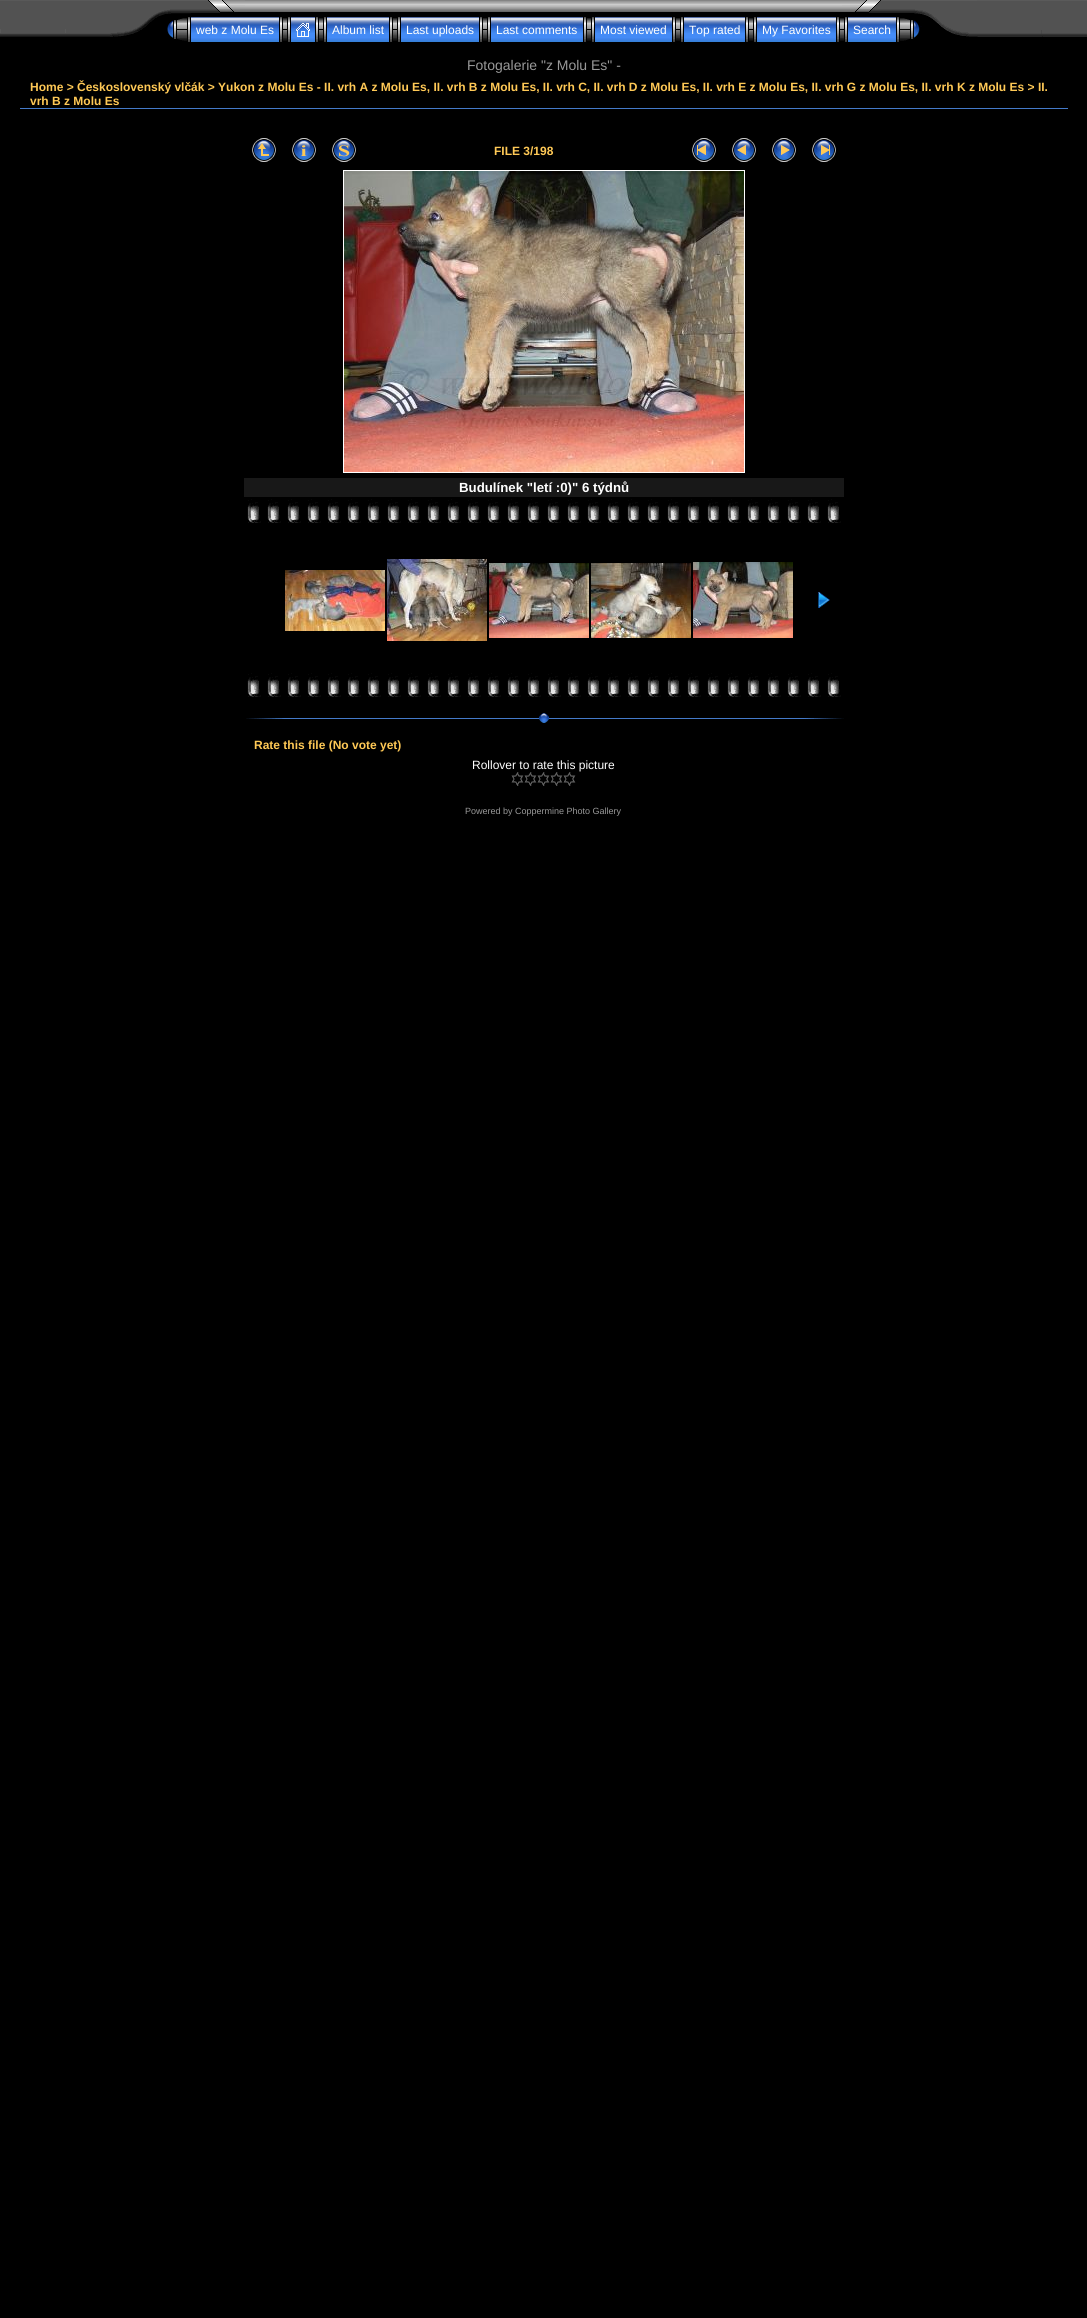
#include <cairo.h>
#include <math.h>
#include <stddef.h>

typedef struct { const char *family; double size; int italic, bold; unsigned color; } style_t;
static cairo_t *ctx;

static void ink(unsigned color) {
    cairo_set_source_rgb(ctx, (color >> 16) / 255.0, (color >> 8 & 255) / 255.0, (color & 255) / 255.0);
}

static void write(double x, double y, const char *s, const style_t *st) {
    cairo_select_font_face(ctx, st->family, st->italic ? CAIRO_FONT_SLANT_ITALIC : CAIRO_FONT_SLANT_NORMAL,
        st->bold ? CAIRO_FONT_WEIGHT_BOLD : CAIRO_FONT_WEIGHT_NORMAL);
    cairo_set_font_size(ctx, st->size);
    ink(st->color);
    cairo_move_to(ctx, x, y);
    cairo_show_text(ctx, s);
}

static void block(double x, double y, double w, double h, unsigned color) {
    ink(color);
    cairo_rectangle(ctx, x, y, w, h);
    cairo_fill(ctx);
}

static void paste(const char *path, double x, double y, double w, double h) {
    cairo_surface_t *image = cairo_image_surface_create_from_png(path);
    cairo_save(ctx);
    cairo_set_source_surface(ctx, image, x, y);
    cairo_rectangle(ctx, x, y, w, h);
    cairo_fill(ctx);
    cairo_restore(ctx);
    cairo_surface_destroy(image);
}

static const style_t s1 = {"Liberation Sans", 12, 0, 0, 0xffffff};
static const style_t s2 = {"Liberation Sans", 14, 0, 0, 0x999999};
static const style_t s3 = {"Liberation Sans", 12, 0, 1, 0xffc956};
static const style_t s4 = {"Liberation Sans", 13.25, 0, 1, 0xffffff};
static const style_t s5 = {"Liberation Sans", 9, 0, 0, 0x999999};

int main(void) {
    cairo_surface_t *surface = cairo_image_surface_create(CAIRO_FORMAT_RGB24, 1087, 2318);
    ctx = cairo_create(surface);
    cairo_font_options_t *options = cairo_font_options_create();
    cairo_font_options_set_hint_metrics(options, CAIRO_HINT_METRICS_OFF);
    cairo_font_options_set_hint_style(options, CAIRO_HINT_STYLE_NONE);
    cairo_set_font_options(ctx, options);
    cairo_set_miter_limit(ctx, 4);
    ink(0x000000);
    cairo_paint(ctx);
    paste("pic1.png", 0, 0, 110, 37);
    paste("pic2.png", 110, 0, 135, 17);
    paste("pic3.png", 245, 0, 597, 12);
    paste("pic4.png", 842, 0, 135, 17);
    paste("pic5.png", 110, 17, 47, 20);
    paste("pic6.png", 167, 17, 23, 25);
    paste("pic7.png", 191, 17, 88, 25);
    write(196, 34, "web z Molu Es", &s1);
    paste("pic8.png", 280, 17, 10, 25);
    paste("pic9.png", 291, 17, 24, 25);
    paste("pic10.png", 296, 23, 14, 14);
    paste("pic8.png", 316, 17, 10, 25);
    paste("pic11.png", 327, 17, 62, 25);
    write(332, 34, "Album list", &s1);
    paste("pic8.png", 390, 17, 10, 25);
    paste("pic12.png", 401, 17, 78, 25);
    write(406, 34, "Last uploads", &s1);
    paste("pic8.png", 480, 17, 10, 25);
    paste("pic13.png", 491, 17, 92, 25);
    write(496, 34, "Last comments", &s1);
    paste("pic8.png", 584, 17, 10, 25);
    paste("pic14.png", 595, 17, 77, 25);
    write(600, 34, "Most viewed", &s1);
    paste("pic8.png", 673, 17, 10, 25);
    paste("pic15.png", 684, 17, 61, 25);
    write(689, 34, "Top rated", &s1);
    paste("pic8.png", 746, 17, 10, 25);
    paste("pic16.png", 757, 17, 79, 25);
    write(762, 34, "My Favorites", &s1);
    paste("pic8.png", 837, 17, 10, 25);
    paste("pic17.png", 848, 17, 48, 25);
    write(853, 34, "Search", &s1);
    paste("pic18.png", 896, 17, 26, 25);
    paste("pic19.png", 930, 17, 47, 20);
    paste("pic20.png", 977, 0, 110, 37);
    write(467, 70, "Fotogalerie \"z Molu Es\" -", &s2);
    block(20, 108, 1048, 1, 0x447ac9);
    write(30, 91, "Home > Československý vlčák > Yukon z Molu Es - II. vrh A z Molu Es, II. vrh B z Molu Es, II. vrh C, II. vrh D z Molu Es, II. vrh E z Molu Es, II. vrh G z Molu Es, II. vrh K z Molu Es > II.", &s3);
    write(30, 105, "vrh B z Molu Es", &s3);
    paste("pic21.png", 252, 138, 24, 24);
    paste("pic22.png", 292, 138, 24, 24);
    paste("pic23.png", 332, 138, 24, 24);
    write(494, 155, "FILE 3/198", &s3);
    paste("pic24.png", 692, 138, 24, 24);
    paste("pic25.png", 732, 138, 24, 24);
    paste("pic26.png", 772, 138, 24, 24);
    paste("pic27.png", 812, 138, 24, 24);
    cairo_rectangle(ctx, 343.5, 170.5, 401, 302);
    ink(0xffffff);
    cairo_set_line_width(ctx, 1);
    cairo_stroke(ctx);
    paste("pic28.png", 344, 171, 400, 301);
    block(244, 478, 600, 19, 0x181818);
    write(459, 492, "Budulínek \"letí :0)\" 6 týdnů", &s4);
    paste("pic29.png", 247, 499, 594, 24);
    paste("pic30.png", 285, 570, 100, 61);
    paste("pic31.png", 387, 559, 100, 82);
    paste("pic32.png", 489, 563, 100, 75);
    paste("pic33.png", 591, 563, 100, 75);
    paste("pic34.png", 693, 562, 100, 76);
    paste("pic35.png", 818, 592, 12, 16);
    paste("pic29.png", 247, 673, 594, 24);
    paste("pic36.png", 246, 718, 38, 1);
    block(284, 718, 520, 1, 0x447ac9);
    paste("pic37.png", 539, 713, 10, 10);
    paste("pic38.png", 804, 718, 40, 1);
    write(254, 749, "Rate this file (No vote yet)", &s3);
    write(472, 769, "Rollover to rate this picture", &s1);
    paste("pic39.png", 511, 772, 13, 14);
    paste("pic39.png", 524, 772, 13, 14);
    paste("pic39.png", 537, 772, 13, 14);
    paste("pic39.png", 550, 772, 13, 14);
    paste("pic39.png", 563, 772, 13, 14);
    write(465, 814, "Powered by Coppermine Photo Gallery", &s5);
    cairo_surface_write_to_png(surface, "screenshot.png");
    cairo_font_options_destroy(options);
    cairo_destroy(ctx);
    cairo_surface_destroy(surface);
    return 0;
}
